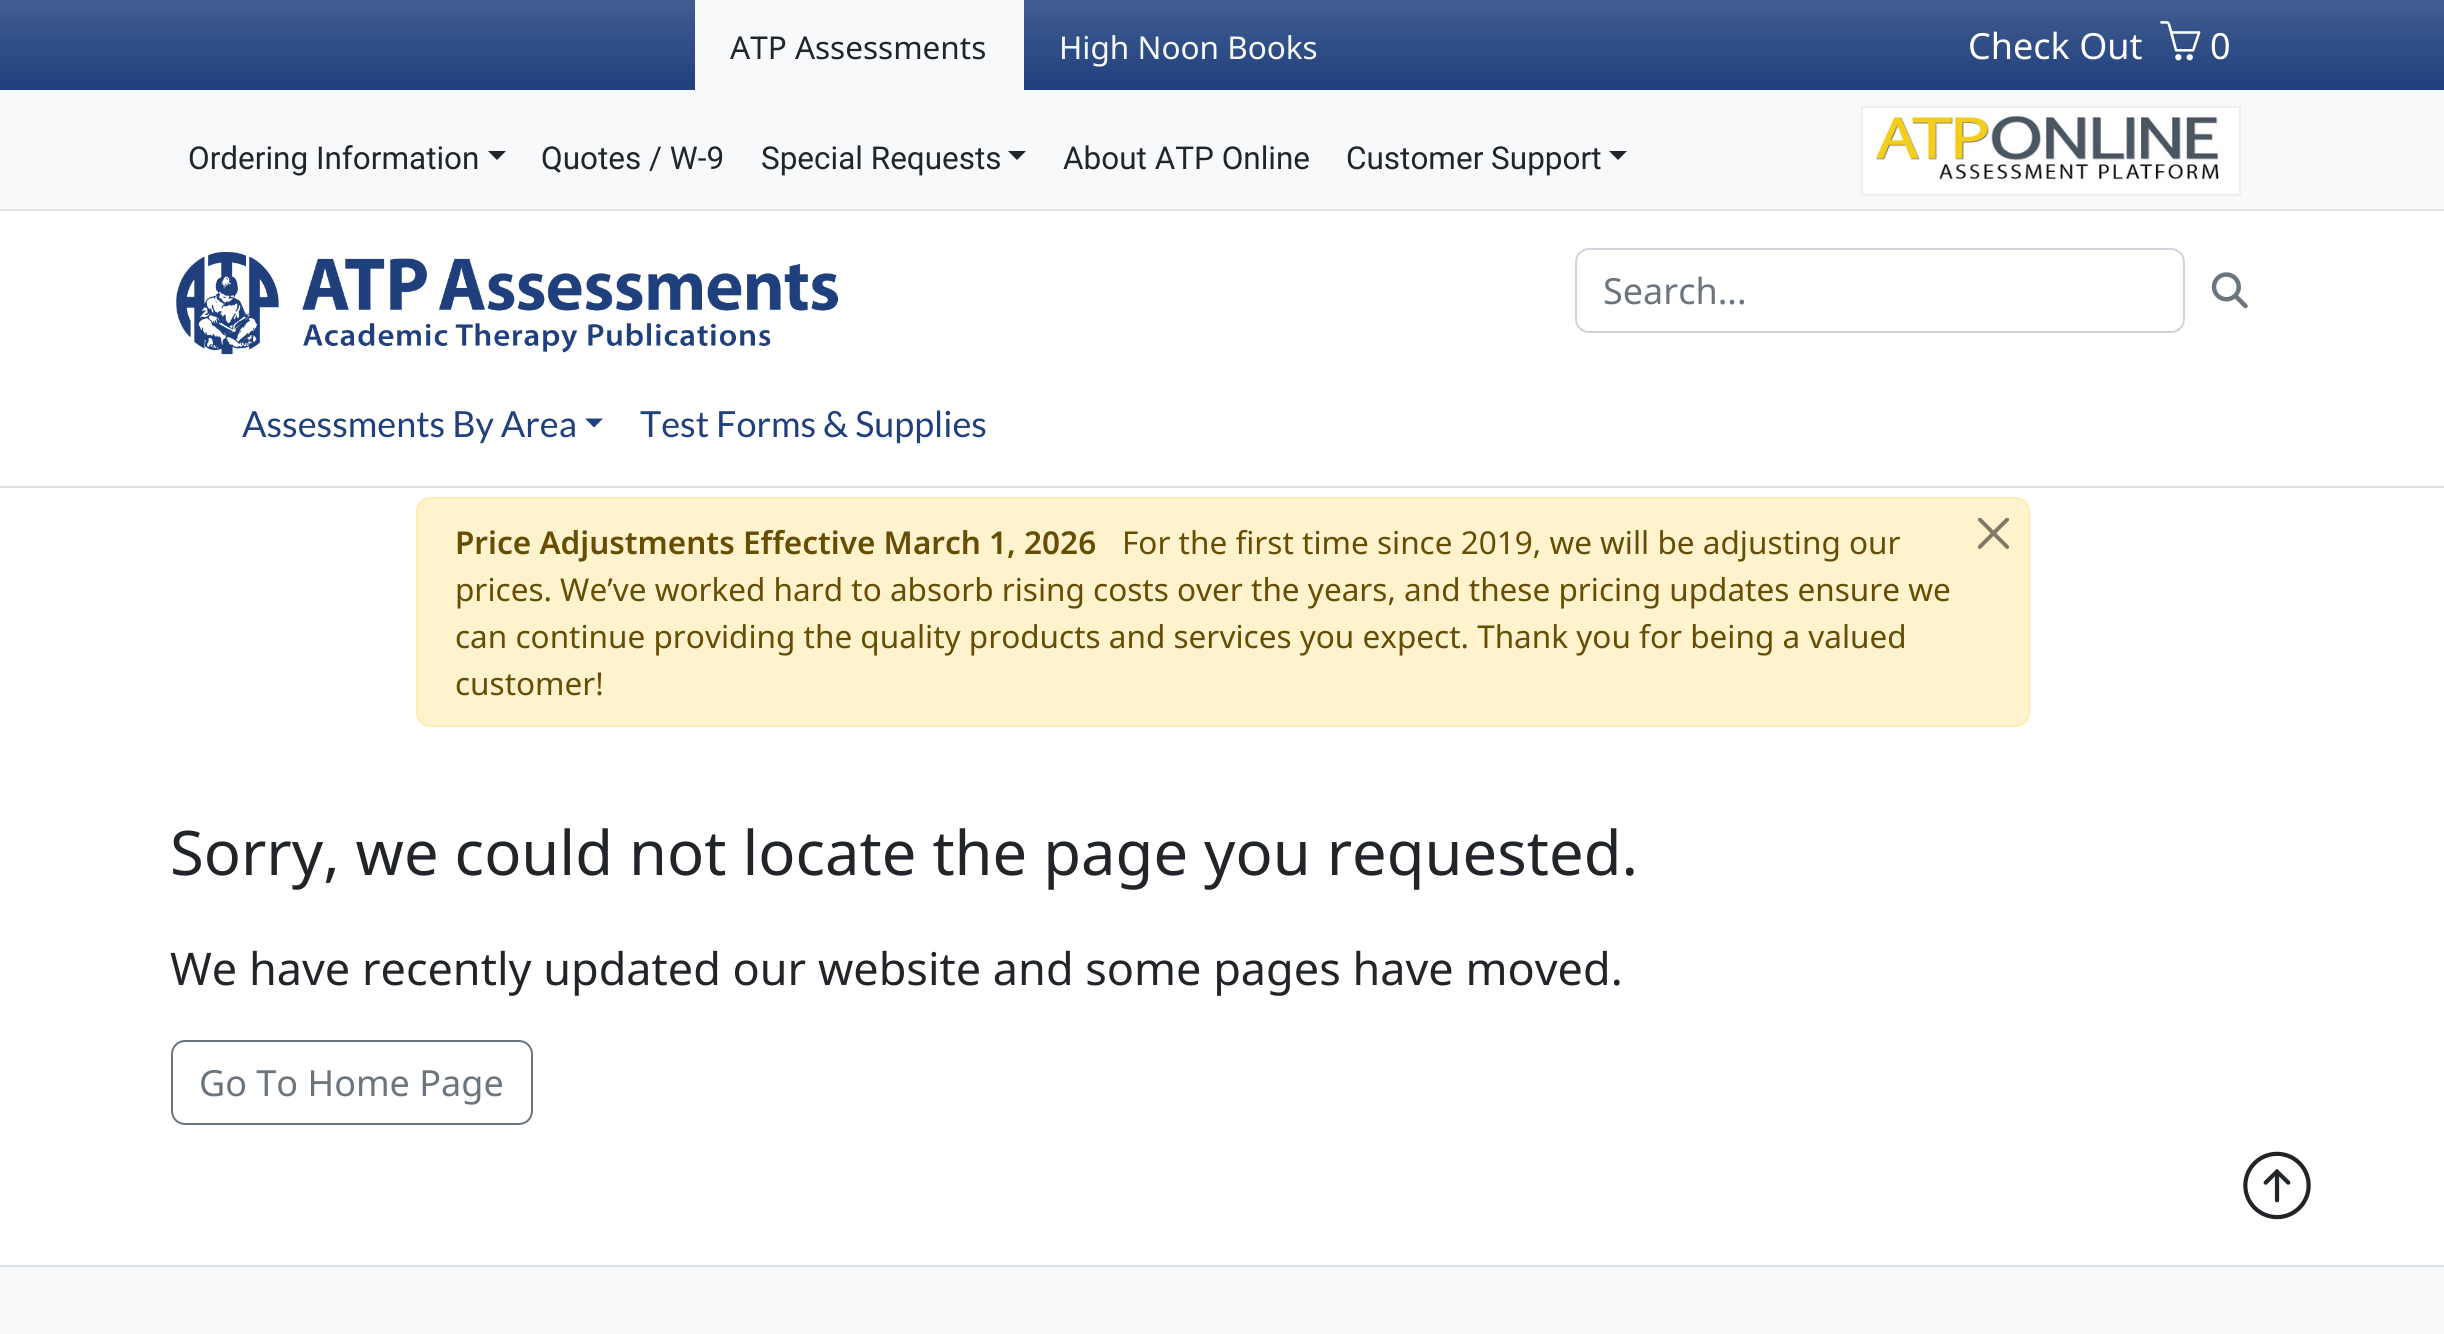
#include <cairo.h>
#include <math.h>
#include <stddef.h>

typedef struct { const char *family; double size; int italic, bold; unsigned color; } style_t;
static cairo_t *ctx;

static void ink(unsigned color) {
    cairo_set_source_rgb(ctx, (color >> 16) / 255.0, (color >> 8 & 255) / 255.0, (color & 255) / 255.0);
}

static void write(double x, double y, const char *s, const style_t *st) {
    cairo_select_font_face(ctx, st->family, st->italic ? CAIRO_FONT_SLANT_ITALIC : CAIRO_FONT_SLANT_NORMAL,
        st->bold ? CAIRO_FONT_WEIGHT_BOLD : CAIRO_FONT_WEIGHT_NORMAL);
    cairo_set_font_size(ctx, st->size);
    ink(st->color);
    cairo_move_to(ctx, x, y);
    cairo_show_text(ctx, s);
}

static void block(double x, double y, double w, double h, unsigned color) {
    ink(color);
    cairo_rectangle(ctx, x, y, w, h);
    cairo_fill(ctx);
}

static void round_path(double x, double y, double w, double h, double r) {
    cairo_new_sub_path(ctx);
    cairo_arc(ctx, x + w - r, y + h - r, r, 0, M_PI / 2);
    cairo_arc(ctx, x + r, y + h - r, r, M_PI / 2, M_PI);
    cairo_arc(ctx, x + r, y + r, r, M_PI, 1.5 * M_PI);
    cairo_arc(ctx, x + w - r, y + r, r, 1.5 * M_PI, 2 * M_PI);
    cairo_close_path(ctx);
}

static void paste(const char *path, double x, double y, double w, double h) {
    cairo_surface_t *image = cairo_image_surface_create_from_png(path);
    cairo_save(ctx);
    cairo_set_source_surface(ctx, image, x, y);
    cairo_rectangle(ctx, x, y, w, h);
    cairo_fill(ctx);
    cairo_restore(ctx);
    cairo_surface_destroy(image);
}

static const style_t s1 = {"Noto Sans", 31.5, 0, 0, 0x212529};
static const style_t s2 = {"Noto Sans", 31.5, 0, 0, 0xf8f9fa};
static const style_t s3 = {"Noto Sans", 36, 0, 0, 0xffffff};
static const style_t s4 = {"Roboto", 31.5, 0, 0, 0x212529};
static const style_t s5 = {"Noto Sans", 36, 0, 0, 0x6c757d};
static const style_t s6 = {"Lato", 36, 0, 0, 0x20407d};
static const style_t s7 = {"Noto Sans SemiBold", 31.5, 0, 0, 0x664d03};
static const style_t s8 = {"Noto Sans", 31.5, 0, 0, 0x664d03};
static const style_t s9 = {"Noto Sans", 61.5, 0, 0, 0x212529};
static const style_t s10 = {"Noto Sans", 45, 0, 0, 0x212529};

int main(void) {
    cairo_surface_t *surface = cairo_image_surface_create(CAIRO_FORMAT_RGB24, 2444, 1334);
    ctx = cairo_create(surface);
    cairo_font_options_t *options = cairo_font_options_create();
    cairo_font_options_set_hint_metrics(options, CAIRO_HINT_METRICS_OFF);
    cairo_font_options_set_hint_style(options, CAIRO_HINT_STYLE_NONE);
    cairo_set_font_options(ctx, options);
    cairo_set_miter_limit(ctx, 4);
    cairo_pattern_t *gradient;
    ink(0xffffff);
    cairo_paint(ctx);
    gradient = cairo_pattern_create_linear(1223, 0, 1223, 90);
    cairo_pattern_add_color_stop_rgba(gradient, 0, 0.255, 0.365, 0.565, 1);
    cairo_pattern_add_color_stop_rgba(gradient, 1, 0.125, 0.251, 0.49, 1);
    cairo_set_source(ctx, gradient);
    cairo_pattern_destroy(gradient);
    cairo_rectangle(ctx, 0, 0, 2444, 90);
    cairo_fill(ctx);
    block(695, 0, 329, 90, 0xf8f9fa);
    write(730, 59, "ATP Assessments", &s1);
    write(1059, 59, "High Noon Books", &s2);
    write(1968, 59, "Check Out", &s3);
    paste("pic1.png", 2160, 21, 41, 40);
    write(2210, 59, "0", &s3);
    block(0, 90, 2444, 122, 0xf8f9fa);
    block(0, 209, 2444, 2, 0xdee2e6);
    write(188, 169, "Ordering Information", &s4);
    cairo_new_path(ctx);
    cairo_move_to(ctx, 488, 151);
    cairo_line_to(ctx, 506, 151);
    cairo_line_to(ctx, 497, 160);
    cairo_close_path(ctx);
    cairo_fill(ctx);
    write(541, 169, "Quotes / W-9", &s4);
    write(761, 169, "Special Requests", &s4);
    cairo_new_path(ctx);
    cairo_move_to(ctx, 1008, 151);
    cairo_line_to(ctx, 1026, 151);
    cairo_line_to(ctx, 1017, 160);
    cairo_close_path(ctx);
    cairo_fill(ctx);
    write(1063, 169, "About ATP Online", &s4);
    write(1346, 169, "Customer Support", &s4);
    cairo_new_path(ctx);
    cairo_move_to(ctx, 1609, 151);
    cairo_line_to(ctx, 1627, 151);
    cairo_line_to(ctx, 1618, 160);
    cairo_close_path(ctx);
    cairo_fill(ctx);
    cairo_rectangle(ctx, 1862, 107, 378, 88);
    ink(0xeeeeee);
    cairo_stroke(ctx);
    paste("pic2.png", 1863, 108, 376, 85);
    paste("pic3.png", 176, 252, 663, 103);
    round_path(1576, 249, 608, 83, 13);
    ink(0xced4da);
    cairo_stroke(ctx);
    write(1603, 304, "Search...", &s5);
    paste("pic4.png", 2211, 272, 37, 37);
    block(0, 486, 2444, 2, 0xdee2e6);
    write(242, 437, "Assessments By Area", &s6);
    cairo_new_path(ctx);
    cairo_move_to(ctx, 585, 418.5);
    cairo_line_to(ctx, 603, 418.5);
    cairo_line_to(ctx, 594, 427.5);
    cairo_close_path(ctx);
    cairo_fill(ctx);
    write(640, 437, "Test Forms & Supplies", &s6);
    ink(0xfff3cd);
    round_path(417, 498, 1612, 228, 13);
    cairo_fill_preserve(ctx);
    ink(0xffecb5);
    cairo_stroke(ctx);
    write(455, 554, "Price Adjustments Effective March 1, 2026", &s7);
    write(1122, 554, "For the first time since 2019, we will be adjusting our", &s8);
    write(455, 601, "prices. We’ve worked hard to absorb rising costs over the years, and these pricing updates ensure we", &s8);
    write(455, 648, "can continue providing the quality products and services you expect. Thank you for being a valued", &s8);
    write(455, 695, "customer!", &s8);
    paste("pic5.png", 1978, 518, 31, 31);
    write(170, 875, "Sorry, we could not locate the page you requested.", &s9);
    write(170, 985, "We have recently updated our website and some pages have moved.", &s10);
    round_path(172, 1041, 360, 83, 13);
    ink(0x6c757d);
    cairo_stroke(ctx);
    write(199, 1096, "Go To Home Page", &s5);
    paste("pic6.png", 2243, 1151, 68, 69);
    block(0, 1267, 2444, 67, 0xf8f9fa);
    block(0, 1265, 2444, 2, 0xdee2e6);
    cairo_surface_write_to_png(surface, "screenshot.png");
    cairo_font_options_destroy(options);
    cairo_destroy(ctx);
    cairo_surface_destroy(surface);
    return 0;
}
